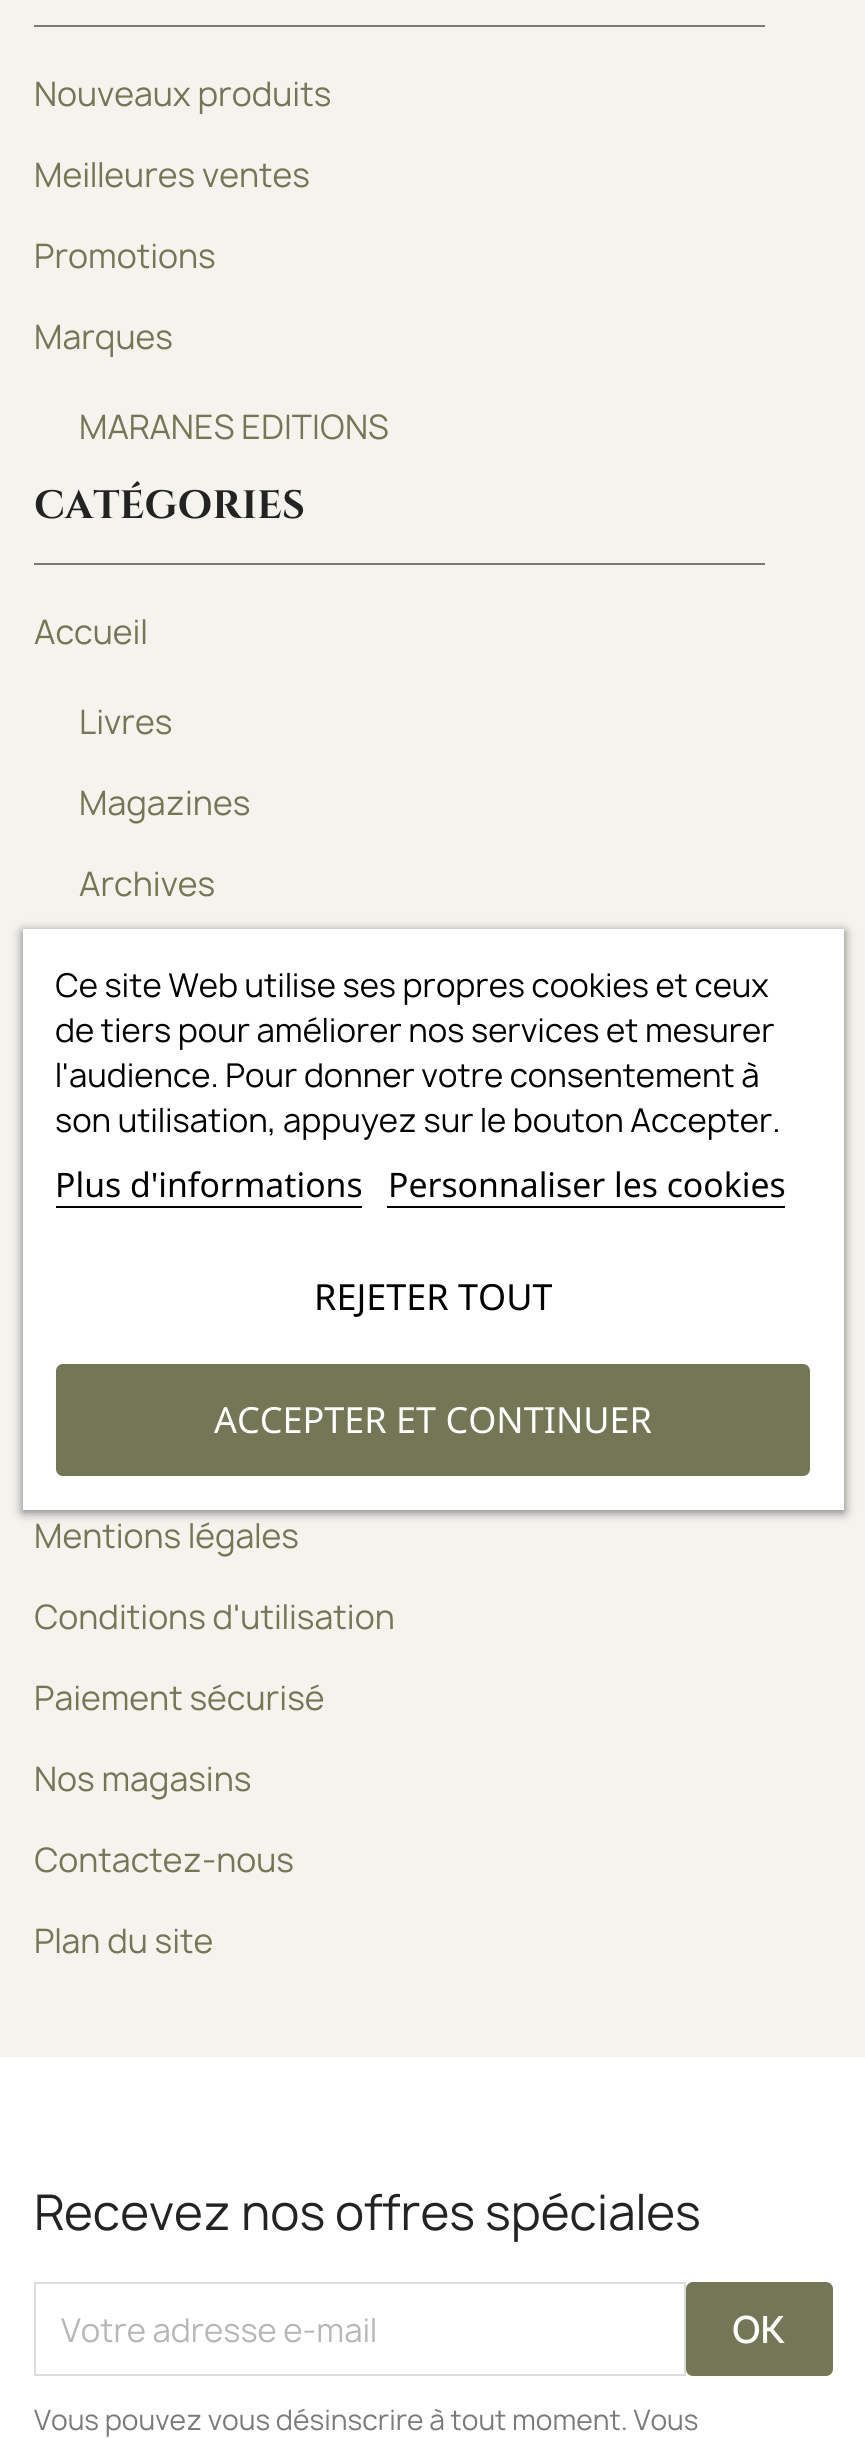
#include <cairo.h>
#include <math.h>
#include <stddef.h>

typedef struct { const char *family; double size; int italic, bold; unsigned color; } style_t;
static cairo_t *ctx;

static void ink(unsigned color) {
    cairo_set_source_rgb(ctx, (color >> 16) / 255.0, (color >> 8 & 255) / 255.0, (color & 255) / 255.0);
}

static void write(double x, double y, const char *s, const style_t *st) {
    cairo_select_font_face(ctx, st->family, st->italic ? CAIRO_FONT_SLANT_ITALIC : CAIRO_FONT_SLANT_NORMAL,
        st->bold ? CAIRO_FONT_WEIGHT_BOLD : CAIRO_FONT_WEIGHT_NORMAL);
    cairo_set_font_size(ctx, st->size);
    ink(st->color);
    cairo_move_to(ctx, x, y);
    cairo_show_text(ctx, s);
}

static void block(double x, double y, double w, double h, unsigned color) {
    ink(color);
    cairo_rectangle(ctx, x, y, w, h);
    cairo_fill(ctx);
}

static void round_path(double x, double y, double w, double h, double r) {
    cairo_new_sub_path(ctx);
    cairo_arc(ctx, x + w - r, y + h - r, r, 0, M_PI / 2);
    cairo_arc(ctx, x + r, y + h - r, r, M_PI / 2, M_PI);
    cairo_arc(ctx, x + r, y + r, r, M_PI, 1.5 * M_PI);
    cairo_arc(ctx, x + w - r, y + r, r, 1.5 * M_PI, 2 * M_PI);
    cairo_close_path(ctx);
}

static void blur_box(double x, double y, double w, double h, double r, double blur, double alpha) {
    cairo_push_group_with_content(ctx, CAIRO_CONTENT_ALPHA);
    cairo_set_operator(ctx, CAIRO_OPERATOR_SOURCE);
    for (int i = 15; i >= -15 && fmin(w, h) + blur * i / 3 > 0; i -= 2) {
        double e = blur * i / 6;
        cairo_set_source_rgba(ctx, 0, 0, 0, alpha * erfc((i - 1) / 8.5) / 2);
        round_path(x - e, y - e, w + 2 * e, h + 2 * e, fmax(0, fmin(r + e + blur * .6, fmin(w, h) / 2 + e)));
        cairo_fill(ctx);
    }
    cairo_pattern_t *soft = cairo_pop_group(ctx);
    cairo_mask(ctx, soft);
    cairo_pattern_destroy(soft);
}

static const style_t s1 = {"Manrope", 32.4, 0, 0, 0x737755};
static const style_t s2 = {"Cinzel", 39.5, 0, 1, 0x232323};
static const style_t s3 = {"Manrope", 31.5, 0, 0, 0x000000};
static const style_t s4 = {"Noto Sans", 33.75, 0, 0, 0x000000};
static const style_t s5 = {"Noto Sans", 36, 0, 0, 0x000000};
static const style_t s6 = {"Noto Sans", 36, 0, 0, 0xffffff};
static const style_t s7 = {"Manrope", 47.25, 0, 0, 0x232323};
static const style_t s8 = {"Manrope", 31.5, 0, 0, 0xb7b7b7};
static const style_t s9 = {"Manrope SemiBold", 36, 0, 0, 0xffffff};
static const style_t s10 = {"Manrope", 27, 0, 0, 0x7a7a7a};

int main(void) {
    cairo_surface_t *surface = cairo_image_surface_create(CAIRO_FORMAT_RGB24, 865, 2439);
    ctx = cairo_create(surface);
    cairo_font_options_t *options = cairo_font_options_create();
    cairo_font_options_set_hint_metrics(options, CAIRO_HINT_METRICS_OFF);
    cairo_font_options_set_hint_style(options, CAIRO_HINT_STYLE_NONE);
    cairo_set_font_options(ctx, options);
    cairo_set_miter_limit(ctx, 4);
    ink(0xffffff);
    cairo_paint(ctx);
    block(0, 0, 865, 2057, 0xf4f3ee);
    block(34, 25, 731, 2, 0x7a7a7a);
    write(34, 106, "Nouveaux produits", &s1);
    write(34, 187, "Meilleures ventes", &s1);
    write(34, 268, "Promotions", &s1);
    write(34, 349, "Marques", &s1);
    write(79, 439, "MARANES EDITIONS", &s1);
    block(34, 563, 731, 2, 0x7a7a7a);
    write(34, 518, "CATÉGORIES", &s2);
    write(34, 644, "Accueil", &s1);
    write(79, 734, "Livres", &s1);
    write(79, 815, "Magazines", &s1);
    write(79, 896, "Archives", &s1);
    write(34, 1548, "Mentions légales", &s1);
    write(34, 1629, "Conditions d'utilisation", &s1);
    write(34, 1710, "Paiement sécurisé", &s1);
    write(34, 1791, "Nos magasins", &s1);
    write(34, 1872, "Contactez-nous", &s1);
    write(34, 1953, "Plan du site", &s1);
    ink(0x707070);
    blur_box(23, 932, 821, 580, 0, 5.5, 1);
    block(23, 929, 821, 581, 0xffffff);
    write(55, 997, "Ce site Web utilise ses propres cookies et ceux", &s3);
    write(55, 1042, "de tiers pour améliorer nos services et mesurer", &s3);
    write(55, 1087, "l'audience. Pour donner votre consentement à", &s3);
    write(55, 1132, "son utilisation, appuyez sur le bouton Accepter.", &s3);
    write(55, 1197, "Plus d'informations", &s4);
    block(56, 1206, 306, 2, 0x000000);
    write(388, 1197, "Personnaliser les cookies", &s4);
    block(387, 1206, 398, 2, 0x000000);
    write(314, 1310, "REJETER TOUT", &s5);
    ink(0x737755);
    round_path(56, 1364, 754, 112, 7);
    cairo_fill(ctx);
    write(214, 1433, "ACCEPTER ET CONTINUER", &s6);
    write(34, 2230, "Recevez nos offres spéciales", &s7);
    cairo_rectangle(ctx, 35, 2283, 650, 92);
    ink(0xdddddd);
    cairo_stroke(ctx);
    write(61, 2342, "Votre adresse e-mail", &s8);
    ink(0x737755);
    round_path(686, 2282, 147, 94, 7);
    cairo_fill(ctx);
    write(732, 2343, "OK", &s9);
    write(34, 2430, "Vous pouvez vous désinscrire à tout moment. Vous", &s10);
    cairo_surface_write_to_png(surface, "screenshot.png");
    cairo_font_options_destroy(options);
    cairo_destroy(ctx);
    cairo_surface_destroy(surface);
    return 0;
}
